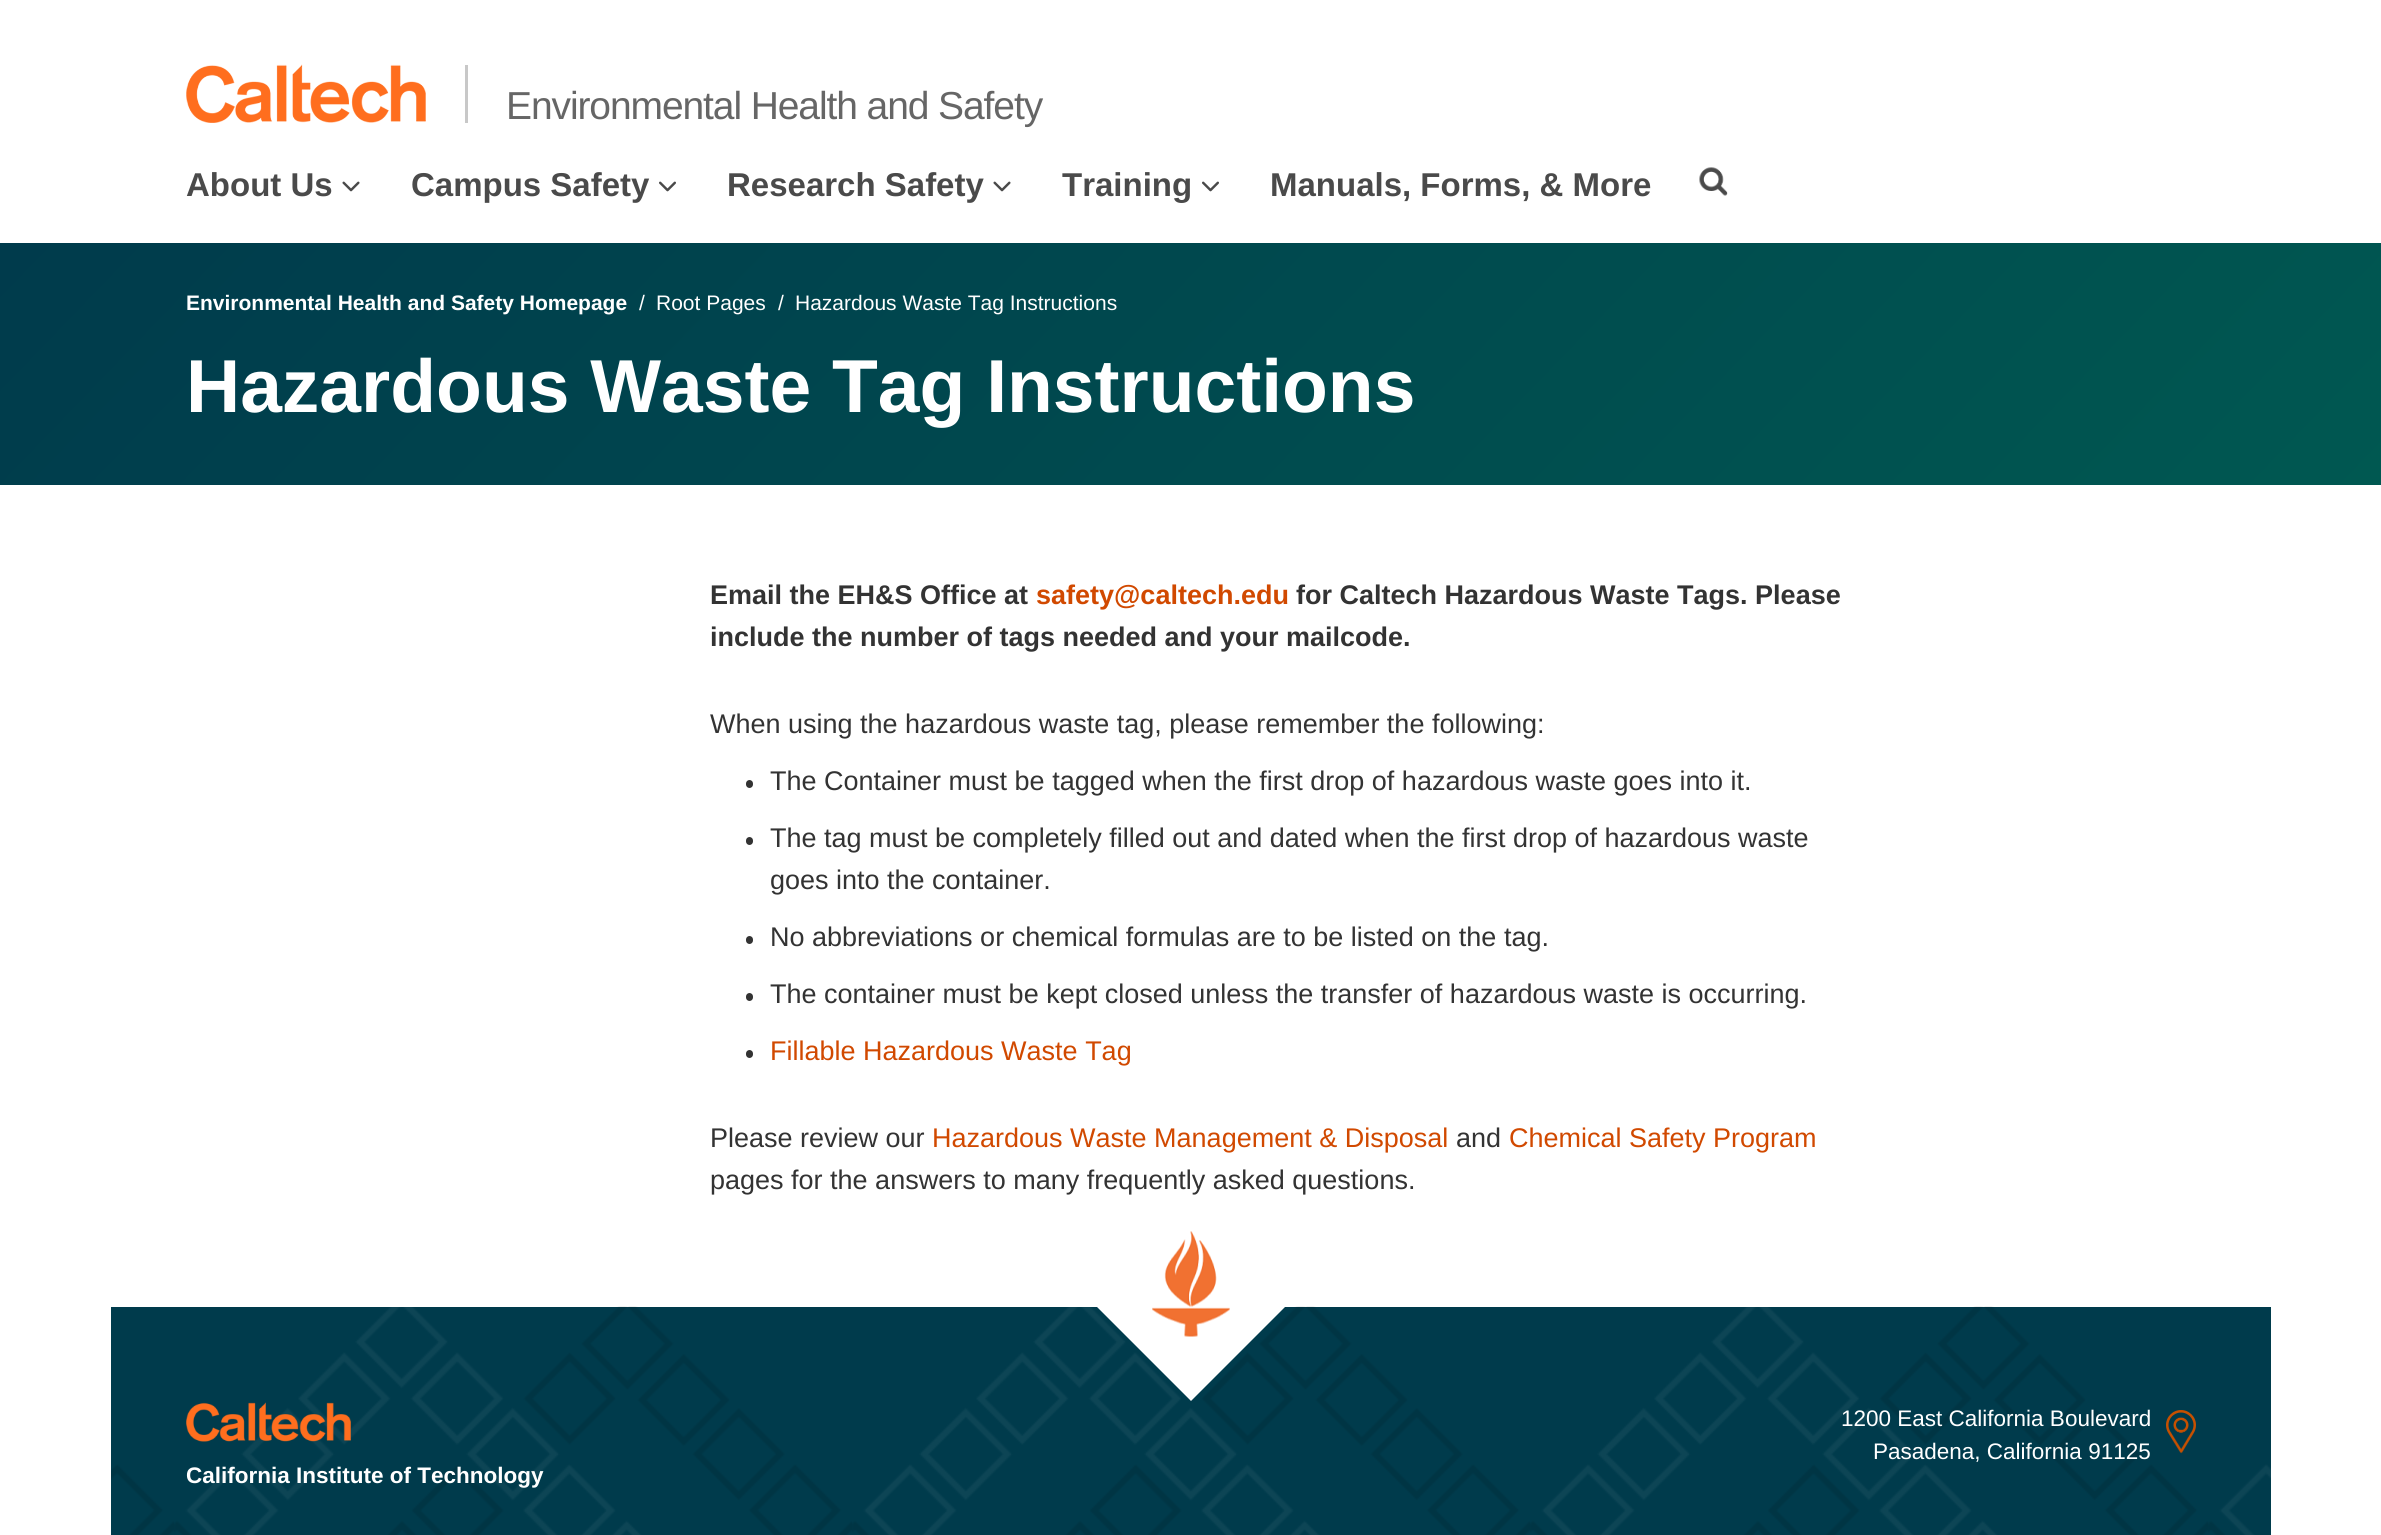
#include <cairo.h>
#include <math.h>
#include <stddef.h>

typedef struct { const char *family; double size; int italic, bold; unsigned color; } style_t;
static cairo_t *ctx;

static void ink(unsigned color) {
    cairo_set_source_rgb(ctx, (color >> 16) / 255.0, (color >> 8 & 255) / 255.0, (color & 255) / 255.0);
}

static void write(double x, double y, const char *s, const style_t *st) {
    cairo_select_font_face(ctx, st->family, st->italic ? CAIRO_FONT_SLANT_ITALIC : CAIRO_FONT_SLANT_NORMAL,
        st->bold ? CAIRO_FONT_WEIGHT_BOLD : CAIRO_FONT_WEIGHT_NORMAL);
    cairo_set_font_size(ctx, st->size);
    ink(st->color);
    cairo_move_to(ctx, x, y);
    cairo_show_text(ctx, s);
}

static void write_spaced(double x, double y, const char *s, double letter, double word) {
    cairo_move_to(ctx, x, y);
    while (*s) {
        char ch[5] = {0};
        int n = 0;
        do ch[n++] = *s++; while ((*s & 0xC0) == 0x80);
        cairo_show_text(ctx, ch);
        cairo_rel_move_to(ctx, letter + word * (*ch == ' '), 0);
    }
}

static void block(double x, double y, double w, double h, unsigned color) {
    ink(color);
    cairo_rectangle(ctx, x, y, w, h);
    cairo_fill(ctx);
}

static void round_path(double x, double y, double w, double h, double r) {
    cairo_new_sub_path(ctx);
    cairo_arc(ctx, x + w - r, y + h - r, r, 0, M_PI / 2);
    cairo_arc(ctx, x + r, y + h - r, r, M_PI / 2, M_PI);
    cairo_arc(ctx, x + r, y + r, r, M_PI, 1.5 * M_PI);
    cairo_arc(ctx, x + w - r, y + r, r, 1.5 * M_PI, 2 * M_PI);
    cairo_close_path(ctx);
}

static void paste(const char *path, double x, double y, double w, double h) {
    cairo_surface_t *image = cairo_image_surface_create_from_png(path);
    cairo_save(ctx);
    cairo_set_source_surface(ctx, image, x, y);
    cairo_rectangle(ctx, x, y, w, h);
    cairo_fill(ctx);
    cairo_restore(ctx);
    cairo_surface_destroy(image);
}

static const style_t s1 = {"Liberation Sans", 33, 0, 1, 0x4a4a4a};
static const style_t s2 = {"Liberation Sans", 21, 0, 1, 0xffffff};
static const style_t s3 = {"Liberation Sans", 21, 0, 0, 0xffffff};
static const style_t s4 = {"Liberation Sans", 75, 0, 1, 0xffffff};
static const style_t s5 = {"Liberation Sans", 27, 0, 1, 0x333333};
static const style_t s6 = {"Liberation Sans", 27, 0, 1, 0xd14900};
static const style_t s7 = {"Liberation Sans", 27, 0, 0, 0x333333};
static const style_t s8 = {"Liberation Sans", 27, 0, 0, 0xd14900};
static const style_t s9 = {"Liberation Sans", 22.5, 0, 0, 0xffffff};
static const style_t s10 = {"Liberation Sans", 22.5, 0, 1, 0xffffff};

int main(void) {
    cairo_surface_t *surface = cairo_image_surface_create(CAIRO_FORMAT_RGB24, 2381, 1535);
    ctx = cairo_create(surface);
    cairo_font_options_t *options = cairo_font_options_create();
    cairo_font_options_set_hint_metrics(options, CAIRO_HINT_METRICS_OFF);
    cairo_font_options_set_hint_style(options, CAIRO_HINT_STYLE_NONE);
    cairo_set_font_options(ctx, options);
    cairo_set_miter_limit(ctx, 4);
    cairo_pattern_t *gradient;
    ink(0xffffff);
    cairo_paint(ctx);
    paste("pic1.png", 186, 64, 240, 59);
    block(465, 65, 3, 58, 0xc8c8c8);
    cairo_select_font_face(ctx, "Liberation Sans", CAIRO_FONT_SLANT_NORMAL, CAIRO_FONT_WEIGHT_NORMAL);
    cairo_set_font_size(ctx, 39);
    ink(0x666666);
    write_spaced(506, 119, "Environmental Health and Safety", -1.1, 0);
    write(186, 196, "About Us", &s1);
    paste("pic2.png", 342, 181, 18, 11);
    write(411, 196, "Campus Safety", &s1);
    paste("pic3.png", 659, 181, 17, 11);
    write(727, 196, "Research Safety", &s1);
    paste("pic2.png", 993, 181, 18, 11);
    write(1062, 196, "Training", &s1);
    paste("pic3.png", 1202, 181, 17, 11);
    write(1270, 196, "Manuals, Forms, & More", &s1);
    paste("pic4.png", 1699, 167, 29, 29);
    gradient = cairo_pattern_create_linear(514, -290, 1868, 1017);
    cairo_pattern_add_color_stop_rgba(gradient, 0, 0, 0.231, 0.298, 1);
    cairo_pattern_add_color_stop_rgba(gradient, 1, 0, 0.345, 0.318, 1);
    cairo_set_source(ctx, gradient);
    cairo_pattern_destroy(gradient);
    cairo_rectangle(ctx, 0, 243, 2381, 242);
    cairo_fill(ctx);
    write(186, 310, "Environmental Health and Safety Homepage", &s2);
    write(639, 310, "/", &s3);
    write(656, 310, "Root Pages", &s3);
    write(778, 310, "/", &s3);
    write(795, 310, "Hazardous Waste Tag Instructions", &s3);
    write(186, 412, "Hazardous Waste Tag Instructions", &s4);
    write(710, 604, "Email the EH&S Office at", &s5);
    write(1036, 604, "safety@caltech.edu", &s6);
    write(1296, 604, "for Caltech Hazardous Waste Tags. Please", &s5);
    write(710, 646, "include the number of tags needed and your mailcode.", &s5);
    write(710, 733, "When using the hazardous waste tag, please remember the following:", &s7);
    round_path(746, 780, 7, 8, 3.5);
    cairo_fill(ctx);
    write(770, 790, "The Container must be tagged when the first drop of hazardous waste goes into it.", &s7);
    round_path(746, 837, 7, 8, 3.5);
    cairo_fill(ctx);
    write(770, 847, "The tag must be completely filled out and dated when the first drop of hazardous waste", &s7);
    write(770, 889, "goes into the container.", &s7);
    round_path(746, 936, 7, 8, 3.5);
    cairo_fill(ctx);
    write(770, 946, "No abbreviations or chemical formulas are to be listed on the tag.", &s7);
    round_path(746, 993, 7, 8, 3.5);
    cairo_fill(ctx);
    write(770, 1003, "The container must be kept closed unless the transfer of hazardous waste is occurring.", &s7);
    round_path(746, 1050, 7, 8, 3.5);
    cairo_fill(ctx);
    write(770, 1060, "Fillable Hazardous Waste Tag", &s8);
    write(710, 1147, "Please review our", &s7);
    write(932, 1147, "Hazardous Waste Management & Disposal", &s8);
    write(1456, 1147, "and", &s7);
    write(1509, 1147, "Chemical Safety Program", &s8);
    write(710, 1189, "pages for the answers to many frequently asked questions.", &s7);
    block(111, 1307, 2160, 228, 0x003b4c);
    paste("pic5.png", 111, 1306, 2160, 229);
    ink(0xffffff);
    cairo_new_path(ctx);
    cairo_move_to(ctx, 1191, 1210);
    cairo_line_to(ctx, 1286, 1306);
    cairo_line_to(ctx, 1191, 1401);
    cairo_line_to(ctx, 1096, 1306);
    cairo_close_path(ctx);
    cairo_fill(ctx);
    paste("pic6.png", 1152, 1231, 78, 106);
    write(1841, 1426, "1200 East California Boulevard", &s9);
    paste("pic7.png", 2166, 1410, 30, 44);
    write(1873, 1459, "Pasadena, California 91125", &s9);
    paste("pic8.png", 186, 1402, 165, 40);
    write(186, 1483, "California Institute of Technology", &s10);
    cairo_surface_write_to_png(surface, "screenshot.png");
    cairo_font_options_destroy(options);
    cairo_destroy(ctx);
    cairo_surface_destroy(surface);
    return 0;
}
